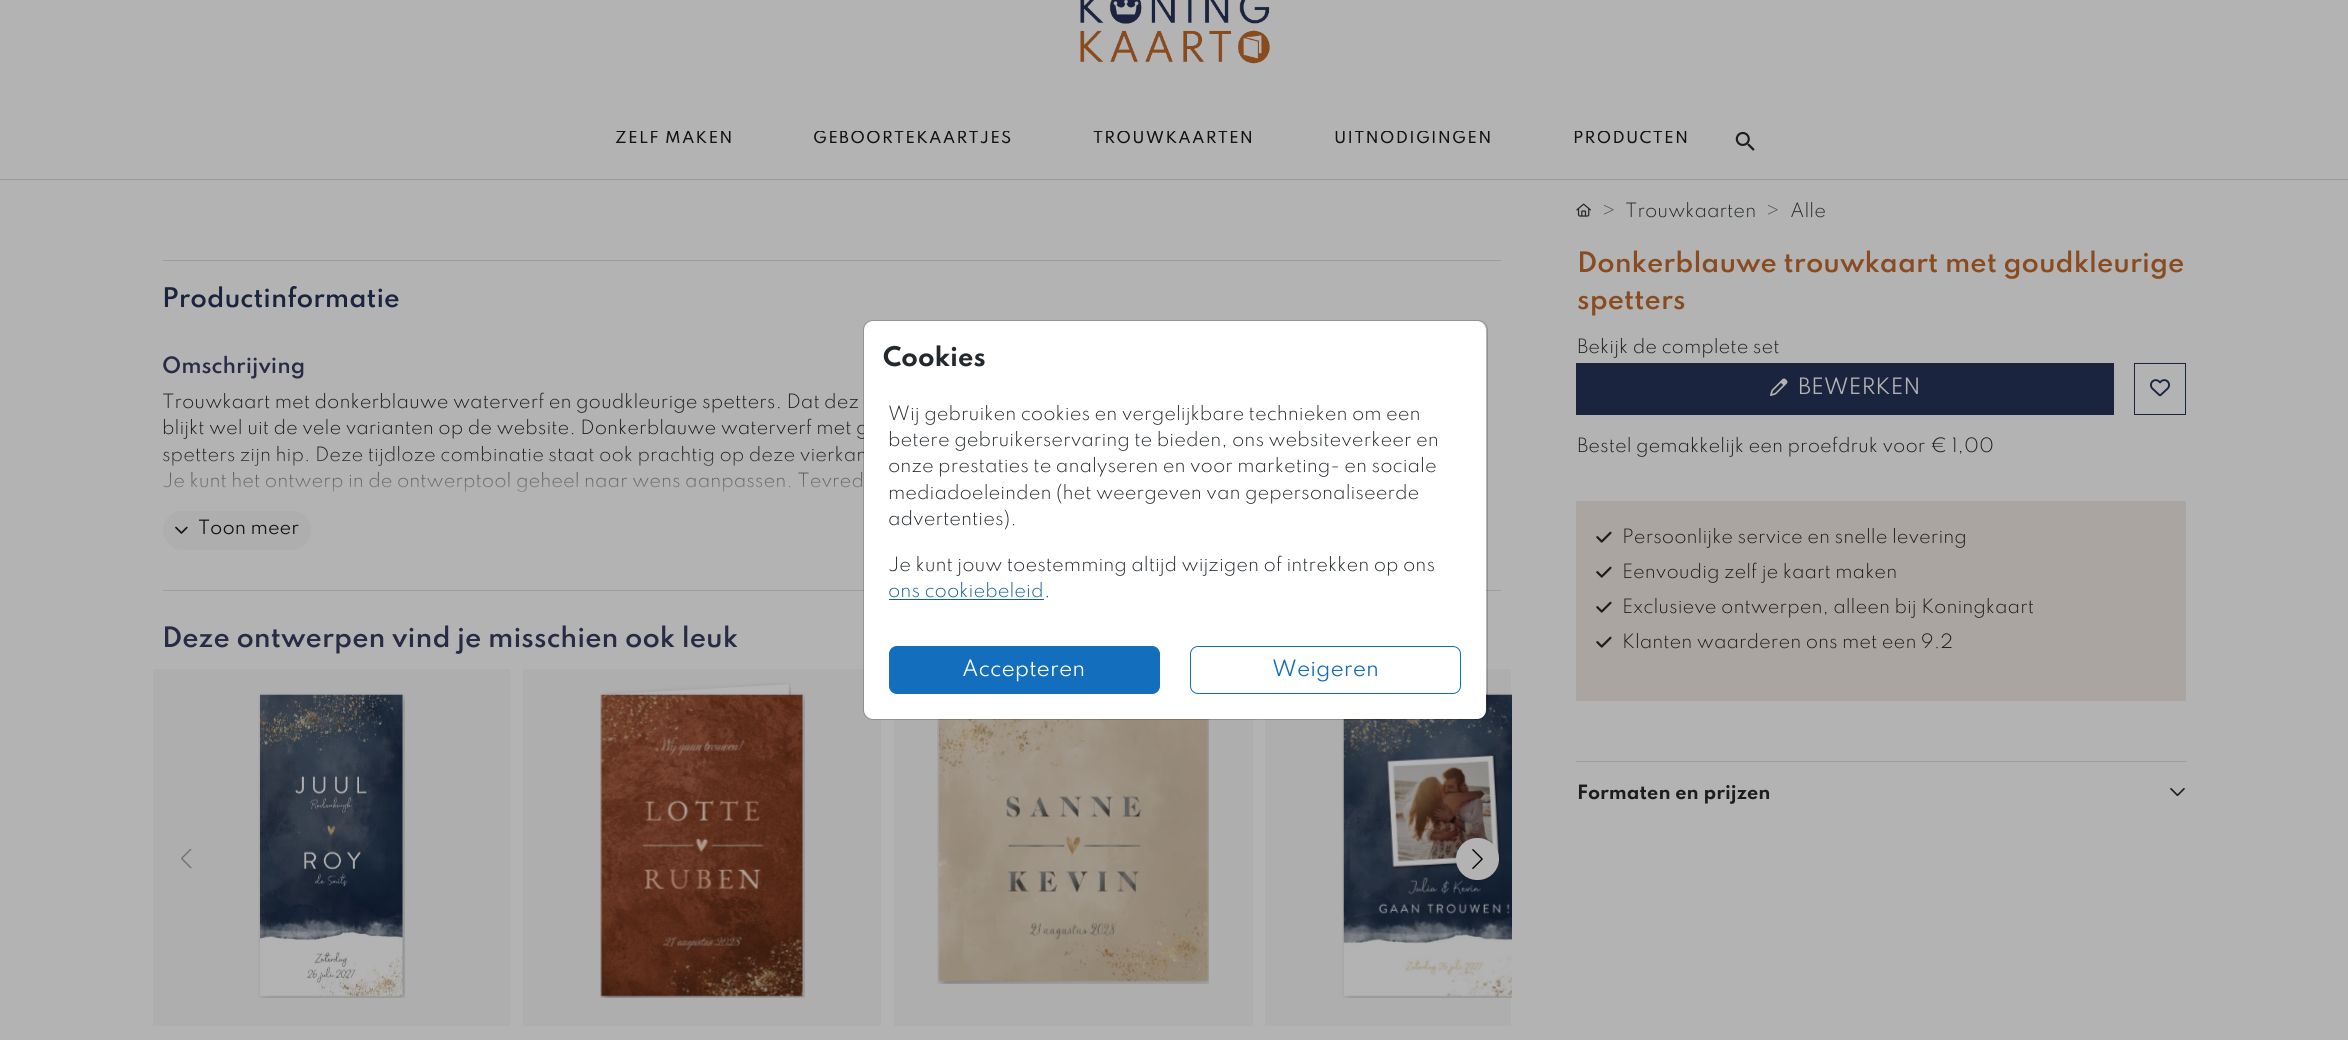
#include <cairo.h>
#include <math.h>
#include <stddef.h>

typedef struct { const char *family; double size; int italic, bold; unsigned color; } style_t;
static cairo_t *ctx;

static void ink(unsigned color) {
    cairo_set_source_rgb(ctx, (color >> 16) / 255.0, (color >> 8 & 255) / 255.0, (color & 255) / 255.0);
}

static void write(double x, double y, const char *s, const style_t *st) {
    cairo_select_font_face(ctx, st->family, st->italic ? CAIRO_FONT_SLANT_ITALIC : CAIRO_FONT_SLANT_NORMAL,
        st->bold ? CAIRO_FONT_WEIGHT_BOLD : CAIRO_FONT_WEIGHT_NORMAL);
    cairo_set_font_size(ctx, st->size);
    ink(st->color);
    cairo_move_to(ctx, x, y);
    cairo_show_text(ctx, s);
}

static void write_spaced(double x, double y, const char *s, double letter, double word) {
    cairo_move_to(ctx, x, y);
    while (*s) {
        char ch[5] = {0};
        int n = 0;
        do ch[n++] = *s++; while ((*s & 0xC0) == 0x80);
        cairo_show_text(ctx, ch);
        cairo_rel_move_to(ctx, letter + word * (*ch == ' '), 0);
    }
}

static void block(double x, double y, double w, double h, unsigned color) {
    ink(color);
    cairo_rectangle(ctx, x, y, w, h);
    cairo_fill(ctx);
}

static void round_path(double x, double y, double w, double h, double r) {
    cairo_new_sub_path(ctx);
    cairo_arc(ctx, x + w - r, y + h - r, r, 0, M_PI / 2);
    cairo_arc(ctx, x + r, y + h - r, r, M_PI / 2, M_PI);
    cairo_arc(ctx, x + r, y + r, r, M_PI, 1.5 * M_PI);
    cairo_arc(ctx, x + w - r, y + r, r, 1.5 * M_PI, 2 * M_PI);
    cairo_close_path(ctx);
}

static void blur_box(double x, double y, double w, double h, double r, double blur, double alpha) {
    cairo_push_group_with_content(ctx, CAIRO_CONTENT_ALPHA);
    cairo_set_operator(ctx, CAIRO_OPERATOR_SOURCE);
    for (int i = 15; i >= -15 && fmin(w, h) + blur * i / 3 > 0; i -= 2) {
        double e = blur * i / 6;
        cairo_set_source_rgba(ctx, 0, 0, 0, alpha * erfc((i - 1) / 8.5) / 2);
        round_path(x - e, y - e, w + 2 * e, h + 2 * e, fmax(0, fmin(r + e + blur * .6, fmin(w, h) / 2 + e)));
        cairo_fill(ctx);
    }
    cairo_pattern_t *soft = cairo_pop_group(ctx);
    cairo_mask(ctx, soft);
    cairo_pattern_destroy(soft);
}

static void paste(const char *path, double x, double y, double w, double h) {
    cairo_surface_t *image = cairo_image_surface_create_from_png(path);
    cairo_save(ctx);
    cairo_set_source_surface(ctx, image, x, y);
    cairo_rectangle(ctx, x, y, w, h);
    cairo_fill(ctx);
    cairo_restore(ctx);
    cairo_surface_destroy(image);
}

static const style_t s1 = {"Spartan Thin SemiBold", 24, 0, 0, 0x1b243e};
static const style_t s2 = {"Spartan Thin SemiBold", 20, 0, 0, 0x292b45};
static const style_t s3 = {"Spartan Thin Light", 17.5, 0, 0, 0x1d1d1d};
static const style_t s4 = {"Spartan Thin", 17.5, 0, 0, 0x121212};
static const style_t s5 = {"Spartan Thin SemiBold", 25, 0, 0, 0x292b45};
static const style_t s6 = {"Spartan Thin Light", 17.5, 0, 0, 0x4c5258};
static const style_t s7 = {"Spartan Thin Light", 17.5, 0, 0, 0x24292d};
static const style_t s8 = {"Spartan Thin SemiBold", 25, 0, 0, 0x894b1f};
static const style_t s9 = {"Spartan Thin", 20, 0, 0, 0xb3b3b3};
static const style_t s10 = {"Spartan Thin", 17.5, 0, 1, 0x1d1d1d};
static const style_t s11 = {"Spartan Thin", 24, 0, 1, 0x24292d};
static const style_t s12 = {"Spartan Thin Light", 17.5, 0, 0, 0x115ea2};
static const style_t s13 = {"Spartan Thin", 20, 0, 0, 0xffffff};
static const style_t s14 = {"Spartan Thin", 20, 0, 0, 0x146ebe};

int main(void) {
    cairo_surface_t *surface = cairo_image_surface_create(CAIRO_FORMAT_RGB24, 2348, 1040);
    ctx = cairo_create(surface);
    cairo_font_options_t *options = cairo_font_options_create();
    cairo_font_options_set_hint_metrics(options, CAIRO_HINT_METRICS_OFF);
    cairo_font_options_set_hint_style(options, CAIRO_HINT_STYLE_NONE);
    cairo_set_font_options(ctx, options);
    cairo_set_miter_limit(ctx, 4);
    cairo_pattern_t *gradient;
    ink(0xb3b3b3);
    cairo_paint(ctx);
    block(0, 179, 2348, 1, 0x999999);
    paste("pic1.png", 1080, 0, 190, 64);
    cairo_save(ctx);
    cairo_rectangle(ctx, 615, 131, 119, 18);
    cairo_clip(ctx);
    cairo_select_font_face(ctx, "Spartan Thin Medium", CAIRO_FONT_SLANT_NORMAL, CAIRO_FONT_WEIGHT_NORMAL);
    cairo_set_font_size(ctx, 15);
    ink(0x121212);
    write_spaced(615, 143, "ZELF MAKEN", 1.25, 0);
    cairo_restore(ctx);
    cairo_save(ctx);
    cairo_rectangle(ctx, 814, 131, 199, 18);
    cairo_clip(ctx);
    cairo_select_font_face(ctx, "Spartan Thin Medium", CAIRO_FONT_SLANT_NORMAL, CAIRO_FONT_WEIGHT_NORMAL);
    cairo_set_font_size(ctx, 15);
    ink(0x121212);
    write_spaced(813, 143, "GEBOORTEKAARTJES", 1.25, 0);
    cairo_restore(ctx);
    cairo_save(ctx);
    cairo_rectangle(ctx, 1093, 131, 161, 18);
    cairo_clip(ctx);
    cairo_select_font_face(ctx, "Spartan Thin Medium", CAIRO_FONT_SLANT_NORMAL, CAIRO_FONT_WEIGHT_NORMAL);
    cairo_set_font_size(ctx, 15);
    ink(0x121212);
    write_spaced(1093, 143, "TROUWKAARTEN", 1.25, 0);
    cairo_restore(ctx);
    cairo_save(ctx);
    cairo_rectangle(ctx, 1334, 131, 159, 18);
    cairo_clip(ctx);
    cairo_select_font_face(ctx, "Spartan Thin Medium", CAIRO_FONT_SLANT_NORMAL, CAIRO_FONT_WEIGHT_NORMAL);
    cairo_set_font_size(ctx, 15);
    ink(0x121212);
    write_spaced(1334, 143, "UITNODIGINGEN", 1.25, 0);
    cairo_restore(ctx);
    cairo_save(ctx);
    cairo_rectangle(ctx, 1573, 131, 116, 18);
    cairo_clip(ctx);
    cairo_select_font_face(ctx, "Spartan Thin Medium", CAIRO_FONT_SLANT_NORMAL, CAIRO_FONT_WEIGHT_NORMAL);
    cairo_set_font_size(ctx, 15);
    ink(0x121212);
    write_spaced(1573, 143, "PRODUCTEN", 1.25, 0);
    cairo_restore(ctx);
    paste("pic2.png", 1735, 131, 20, 20);
    block(163, 260, 1338, 1, 0x9b9ea1);
    block(163, 590, 1338, 1, 0x9b9ea1);
    write(162, 307, "Productinformatie", &s1);
    write(162, 373, "Omschrijving", &s2);
    write(162, 408, "Trouwkaart met donkerblauwe waterverf en goudkleurige spetters. Dat dez", &s3);
    write(162, 434, "blijkt wel uit de vele varianten op de website. Donkerblauwe waterverf met g", &s3);
    write(162, 461, "spetters zijn hip. Deze tijdloze combinatie staat ook prachtig op deze vierkan", &s3);
    write(162, 487, "Je kunt het ontwerp in de ontwerptool geheel naar wens aanpassen. Tevred", &s3);
    gradient = cairo_pattern_create_linear(594, 451, 594, 511);
    cairo_pattern_add_color_stop_rgba(gradient, 0, 0.702, 0.702, 0.702, 0);
    cairo_pattern_add_color_stop_rgba(gradient, 1, 0.702, 0.702, 0.702, 1);
    cairo_set_source(ctx, gradient);
    cairo_pattern_destroy(gradient);
    cairo_rectangle(ctx, 163, 452, 701, 40);
    cairo_fill(ctx);
    ink(0xaeaeaf);
    round_path(163, 511, 148, 39, 19.5);
    cairo_fill(ctx);
    paste("pic3.png", 175, 526, 13, 8);
    write(198, 534, "Toon meer", &s4);
    write(162, 647, "Deze ontwerpen vind je misschien ook leuk", &s5);
    block(153, 669, 357, 357, 0xaeaeaf);
    paste("pic4.png", 258, 693, 147, 305);
    block(523, 669, 358, 357, 0xaeaeaf);
    paste("pic5.png", 600, 682, 191, 316);
    paste("pic6.png", 600, 693, 205, 305);
    block(894, 1020, 359, 6, 0xaeaeaf);
    round_path(894, 669, 359, 357, 6);
    cairo_fill(ctx);
    paste("pic7.png", 937, 719, 135, 265);
    paste("pic8.png", 937, 719, 272, 265);
    block(1265, 1020, 6, 6, 0xaeaeaf);
    cairo_new_path(ctx);
    cairo_move_to(ctx, 1271, 669);
    cairo_line_to(ctx, 1511, 669);
    cairo_line_to(ctx, 1511, 1026);
    cairo_line_to(ctx, 1271, 1026);
    cairo_curve_to(ctx, 1267.5, 1026, 1265, 1023.5, 1265, 1020);
    cairo_line_to(ctx, 1265, 675);
    cairo_curve_to(ctx, 1265, 671.5, 1267.5, 669, 1271, 669);
    cairo_close_path(ctx);
    cairo_fill(ctx);
    paste("pic9.png", 1342, 693, 170, 305);
    paste("pic10.png", 181, 849, 11, 20);
    ink(0x000000);
    blur_box(1456, 840, 43, 43, 21.5, 2.5, 0.07);
    ink(0xb3b3b3);
    round_path(1461.5, 843.5, 32, 31, 15.5);
    cairo_fill_preserve(ctx);
    cairo_set_line_width(ctx, 11);
    cairo_stroke(ctx);
    paste("pic11.png", 1472, 849, 11, 20);
    paste("pic12.png", 1576, 203, 15, 14);
    write(1602, 217, ">", &s6);
    write(1625, 217, "Trouwkaarten", &s7);
    write(1766, 217, ">", &s6);
    write(1790, 217, "Alle", &s7);
    write(1577, 272, "Donkerblauwe trouwkaart met goudkleurige", &s8);
    write(1577, 309, "spetters", &s8);
    write(1577, 353, "Bekijk de complete set", &s3);
    block(1576, 363, 538, 52, 0x1b243e);
    paste("pic13.png", 1770, 378, 18, 18);
    write(1798, 394, "BEWERKEN", &s9);
    cairo_rectangle(ctx, 2134.5, 363.5, 51, 51);
    ink(0x1b243e);
    cairo_set_line_width(ctx, 1);
    cairo_stroke(ctx);
    paste("pic14.png", 2150, 379, 20, 18);
    write(1577, 452, "Bestel gemakkelijk een proefdruk voor € 1,00", &s3);
    block(1576, 501, 610, 200, 0xaaa5a1);
    paste("pic15.png", 1596, 531, 16, 12);
    write(1622, 543, "Persoonlijke service en snelle levering", &s3);
    paste("pic15.png", 1596, 566, 16, 12);
    write(1622, 578, "Eenvoudig zelf je kaart maken", &s3);
    paste("pic15.png", 1596, 601, 16, 12);
    write(1622, 613, "Exclusieve ontwerpen, alleen bij Koningkaart", &s3);
    paste("pic15.png", 1596, 636, 16, 12);
    write(1622, 648, "Klanten waarderen ons met een 9.2", &s3);
    block(1576, 761, 610, 1, 0x9b9ea1);
    write(1577, 799, "Formaten en prijzen", &s10);
    paste("pic16.png", 2170, 788, 15, 9);
    ink(0xffffff);
    round_path(864, 321, 622, 398, 9);
    cairo_fill(ctx);
    round_path(863.5, 320.5, 624, 399, 9.5);
    cairo_set_source_rgba(ctx, 0, 0, 0, 0.18);
    cairo_stroke(ctx);
    write(883, 366, "Cookies", &s11);
    write(888, 420, "Wij gebruiken cookies en vergelijkbare technieken om een", &s7);
    write(888, 446, "betere gebruikerservaring te bieden, ons websiteverkeer en", &s7);
    write(888, 472, "onze prestaties te analyseren en voor marketing- en sociale", &s7);
    write(888, 499, "mediadoeleinden (het weergeven van gepersonaliseerde", &s7);
    write(888, 525, "advertenties).", &s7);
    write(888, 571, "Je kunt jouw toestemming altijd wijzigen of intrekken op ons", &s7);
    write(888, 597, "ons cookiebeleid", &s12);
    block(889, 599, 155, 1, 0x115ea2);
    write(1044, 597, ".", &s7);
    ink(0x146ebe);
    round_path(889.5, 646.5, 270, 47, 7.5);
    cairo_fill_preserve(ctx);
    cairo_stroke(ctx);
    write(962, 676, "Accepteren", &s13);
    round_path(1190.5, 646.5, 270, 47, 7.5);
    ink(0x146ebe);
    cairo_stroke(ctx);
    write(1272, 676, "Weigeren", &s14);
    cairo_surface_write_to_png(surface, "screenshot.png");
    cairo_font_options_destroy(options);
    cairo_destroy(ctx);
    cairo_surface_destroy(surface);
    return 0;
}
